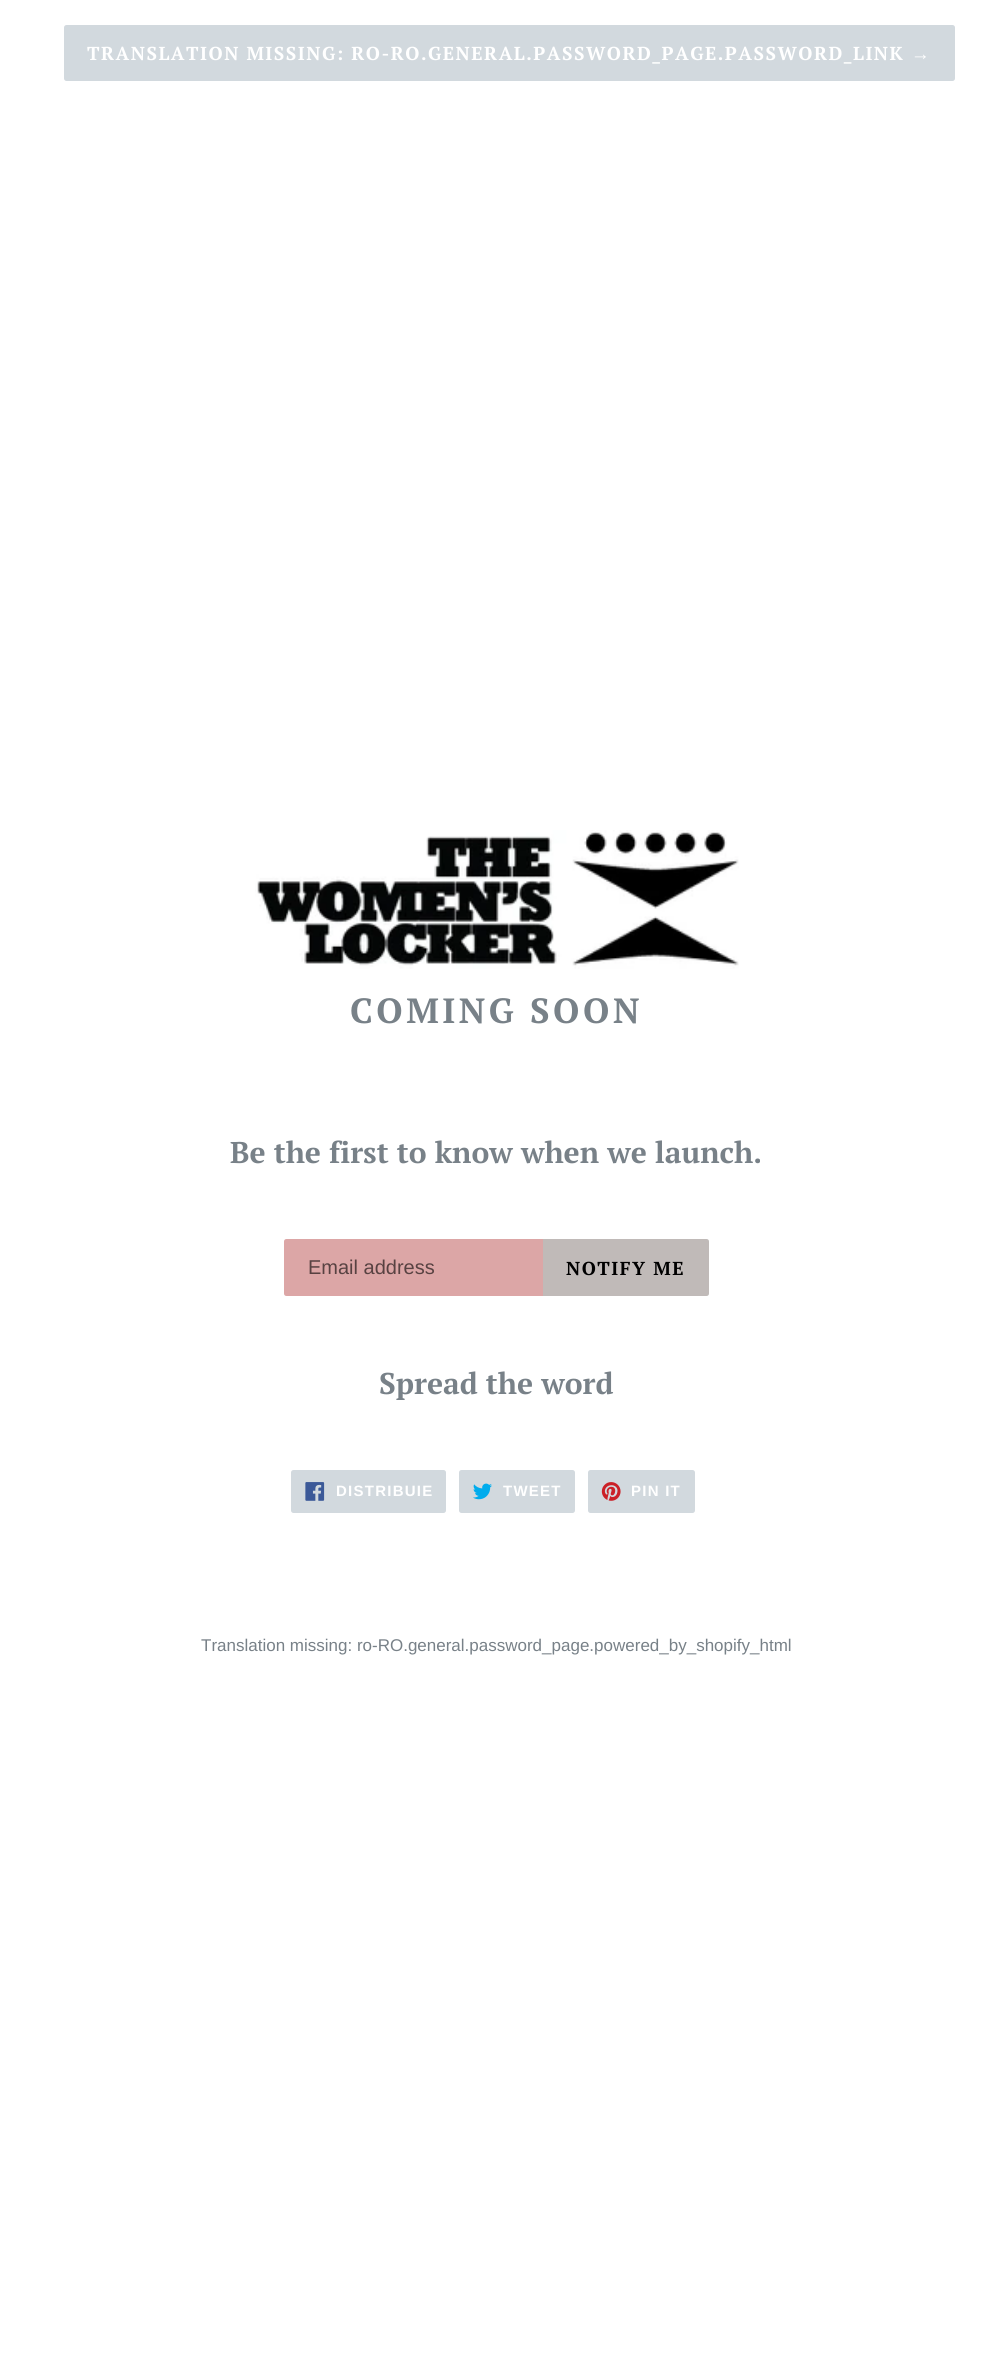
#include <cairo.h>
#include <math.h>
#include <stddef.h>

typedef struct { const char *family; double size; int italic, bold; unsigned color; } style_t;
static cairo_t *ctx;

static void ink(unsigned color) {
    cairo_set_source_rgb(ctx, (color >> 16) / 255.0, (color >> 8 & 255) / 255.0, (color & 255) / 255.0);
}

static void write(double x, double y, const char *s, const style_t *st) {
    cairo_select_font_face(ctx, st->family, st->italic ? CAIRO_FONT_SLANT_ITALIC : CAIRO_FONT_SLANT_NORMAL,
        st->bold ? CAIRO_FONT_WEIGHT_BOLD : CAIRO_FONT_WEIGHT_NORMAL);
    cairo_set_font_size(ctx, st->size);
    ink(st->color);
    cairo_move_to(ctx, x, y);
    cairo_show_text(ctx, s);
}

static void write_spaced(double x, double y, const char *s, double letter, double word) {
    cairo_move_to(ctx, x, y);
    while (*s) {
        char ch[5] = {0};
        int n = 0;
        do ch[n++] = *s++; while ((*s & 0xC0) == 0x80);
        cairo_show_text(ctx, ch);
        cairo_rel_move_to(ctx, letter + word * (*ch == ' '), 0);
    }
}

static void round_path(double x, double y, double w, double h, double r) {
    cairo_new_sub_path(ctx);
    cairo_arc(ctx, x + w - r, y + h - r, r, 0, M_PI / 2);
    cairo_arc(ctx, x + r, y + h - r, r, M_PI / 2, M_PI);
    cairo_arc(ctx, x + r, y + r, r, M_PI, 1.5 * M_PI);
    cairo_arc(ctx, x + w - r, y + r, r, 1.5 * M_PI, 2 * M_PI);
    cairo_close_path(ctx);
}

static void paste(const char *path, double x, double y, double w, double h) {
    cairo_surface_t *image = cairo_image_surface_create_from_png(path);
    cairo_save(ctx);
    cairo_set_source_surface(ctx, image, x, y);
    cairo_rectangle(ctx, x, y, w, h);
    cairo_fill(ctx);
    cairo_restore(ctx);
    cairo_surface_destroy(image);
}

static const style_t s1 = {"PT Serif", 30, 0, 1, 0x788188};
static const style_t s2 = {"Liberation Sans", 20, 0, 0, 0x584242};
static const style_t s3 = {"Liberation Sans", 17, 0, 0, 0x788188};

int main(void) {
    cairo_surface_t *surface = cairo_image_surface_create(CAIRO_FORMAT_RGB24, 992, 2369);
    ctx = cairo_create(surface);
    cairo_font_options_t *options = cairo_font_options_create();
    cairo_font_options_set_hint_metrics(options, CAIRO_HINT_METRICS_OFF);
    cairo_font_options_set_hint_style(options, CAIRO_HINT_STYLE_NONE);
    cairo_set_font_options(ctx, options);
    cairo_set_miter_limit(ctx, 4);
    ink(0xffffff);
    cairo_paint(ctx);
    ink(0xd2d9de);
    round_path(64, 25, 891, 56, 2.5);
    cairo_fill(ctx);
    cairo_select_font_face(ctx, "PT Serif", CAIRO_FONT_SLANT_NORMAL, CAIRO_FONT_WEIGHT_BOLD);
    cairo_set_font_size(ctx, 18.75);
    ink(0xffffff);
    write_spaced(87, 60, "TRANSLATION MISSING: RO-RO.GENERAL.PASSWORD_PAGE.PASSWORD_LINK", 1.5, 0);
    cairo_select_font_face(ctx, "Liberation Serif", CAIRO_FONT_SLANT_NORMAL, CAIRO_FONT_WEIGHT_BOLD);
    write_spaced(911, 60, "→", 1.5, 0);
    paste("pic1.png", 255, 830, 484, 139);
    cairo_select_font_face(ctx, "PT Serif", CAIRO_FONT_SLANT_NORMAL, CAIRO_FONT_WEIGHT_BOLD);
    cairo_set_font_size(ctx, 35);
    ink(0x788188);
    write_spaced(350, 1023, "COMING SOON", 3.5, 0);
    write(230, 1163, "Be the first to know when we launch.", &s1);
    ink(0xdca6a6);
    cairo_new_path(ctx);
    cairo_move_to(ctx, 286.5, 1239);
    cairo_line_to(ctx, 543, 1239);
    cairo_line_to(ctx, 543, 1296);
    cairo_line_to(ctx, 286.5, 1296);
    cairo_curve_to(ctx, 285, 1296, 284, 1295, 284, 1293.5);
    cairo_line_to(ctx, 284, 1241.5);
    cairo_curve_to(ctx, 284, 1240, 285, 1239, 286.5, 1239);
    cairo_close_path(ctx);
    cairo_fill(ctx);
    write(308, 1274, "Email address", &s2);
    ink(0xc0bab8);
    cairo_new_path(ctx);
    cairo_move_to(ctx, 543, 1239);
    cairo_line_to(ctx, 706.5, 1239);
    cairo_curve_to(ctx, 708, 1239, 709, 1240, 709, 1241.5);
    cairo_line_to(ctx, 709, 1293.5);
    cairo_curve_to(ctx, 709, 1295, 708, 1296, 706.5, 1296);
    cairo_line_to(ctx, 543, 1296);
    cairo_close_path(ctx);
    cairo_fill(ctx);
    cairo_select_font_face(ctx, "PT Serif", CAIRO_FONT_SLANT_NORMAL, CAIRO_FONT_WEIGHT_BOLD);
    cairo_set_font_size(ctx, 18.75);
    ink(0x000000);
    write_spaced(566, 1275, "NOTIFY ME", 1.5, 0);
    write(379, 1394, "Spread the word", &s1);
    ink(0xd2d9de);
    round_path(291, 1470, 155, 43, 2.5);
    cairo_fill(ctx);
    paste("pic2.png", 305, 1482, 20, 19);
    cairo_select_font_face(ctx, "Liberation Sans", CAIRO_FONT_SLANT_NORMAL, CAIRO_FONT_WEIGHT_BOLD);
    cairo_set_font_size(ctx, 15);
    ink(0xffffff);
    write_spaced(336, 1496, "DISTRIBUIE", 1.25, 0);
    ink(0xd2d9de);
    round_path(459, 1470, 116, 43, 2.5);
    cairo_fill(ctx);
    paste("pic3.png", 473, 1483, 19, 17);
    ink(0xffffff);
    write_spaced(503, 1496, "TWEET", 1.25, 0);
    ink(0xd2d9de);
    round_path(588, 1470, 107, 43, 2.5);
    cairo_fill(ctx);
    paste("pic4.png", 601, 1482, 20, 19);
    ink(0xffffff);
    write_spaced(631, 1496, "PIN IT", 1.25, 0);
    write(201, 1651, "Translation missing: ro-RO.general.password_page.powered_by_shopify_html", &s3);
    cairo_surface_write_to_png(surface, "screenshot.png");
    cairo_font_options_destroy(options);
    cairo_destroy(ctx);
    cairo_surface_destroy(surface);
    return 0;
}
